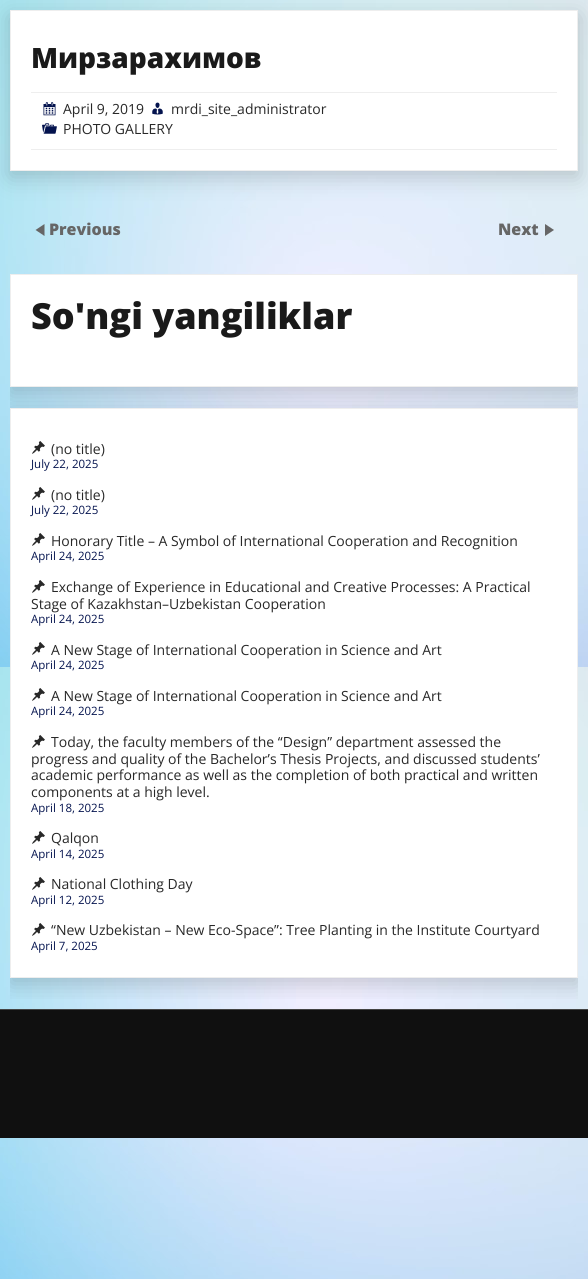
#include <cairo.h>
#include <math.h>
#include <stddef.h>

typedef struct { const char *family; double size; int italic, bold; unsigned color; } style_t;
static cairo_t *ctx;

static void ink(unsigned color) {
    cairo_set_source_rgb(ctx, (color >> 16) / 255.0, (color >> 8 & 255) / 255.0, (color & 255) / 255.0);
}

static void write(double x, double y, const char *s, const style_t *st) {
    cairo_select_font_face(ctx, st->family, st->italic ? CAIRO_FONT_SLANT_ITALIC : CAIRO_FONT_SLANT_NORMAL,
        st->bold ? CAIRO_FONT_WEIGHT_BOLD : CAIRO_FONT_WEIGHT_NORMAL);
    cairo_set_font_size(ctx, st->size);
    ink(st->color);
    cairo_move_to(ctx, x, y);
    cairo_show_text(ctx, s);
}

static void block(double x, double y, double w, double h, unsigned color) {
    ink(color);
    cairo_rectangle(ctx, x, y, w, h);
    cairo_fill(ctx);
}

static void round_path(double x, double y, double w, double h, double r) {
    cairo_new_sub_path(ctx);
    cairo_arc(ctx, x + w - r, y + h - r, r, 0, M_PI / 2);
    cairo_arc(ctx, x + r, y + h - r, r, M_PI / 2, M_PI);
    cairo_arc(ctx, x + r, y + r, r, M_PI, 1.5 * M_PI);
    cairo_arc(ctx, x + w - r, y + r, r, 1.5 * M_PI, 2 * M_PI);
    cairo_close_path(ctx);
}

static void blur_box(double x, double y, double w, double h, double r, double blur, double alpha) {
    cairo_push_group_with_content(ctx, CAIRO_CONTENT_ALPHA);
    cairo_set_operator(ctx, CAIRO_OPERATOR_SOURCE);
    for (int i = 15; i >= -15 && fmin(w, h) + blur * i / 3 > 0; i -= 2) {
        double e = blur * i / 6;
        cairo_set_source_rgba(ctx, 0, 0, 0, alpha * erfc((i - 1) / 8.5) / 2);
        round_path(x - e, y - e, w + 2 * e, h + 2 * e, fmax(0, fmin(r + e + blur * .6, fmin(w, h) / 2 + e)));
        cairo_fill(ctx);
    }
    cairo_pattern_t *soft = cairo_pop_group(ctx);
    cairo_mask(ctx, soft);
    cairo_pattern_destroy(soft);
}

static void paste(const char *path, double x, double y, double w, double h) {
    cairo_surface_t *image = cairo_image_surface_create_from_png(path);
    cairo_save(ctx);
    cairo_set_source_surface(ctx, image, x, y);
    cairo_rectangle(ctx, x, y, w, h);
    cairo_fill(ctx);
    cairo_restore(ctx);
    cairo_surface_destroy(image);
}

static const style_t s1 = {"Open Sans ExtraBold", 28, 0, 0, 0x1a1a1a};
static const style_t s2 = {"Open Sans", 14, 0, 0, 0x282828};
static const style_t s3 = {"Open Sans ExtraBold", 16, 0, 0, 0x666666};
static const style_t s4 = {"Open Sans ExtraBold", 36, 0, 0, 0x1a1a1a};
static const style_t s5 = {"Open Sans", 11.5, 0, 0, 0x04134e};

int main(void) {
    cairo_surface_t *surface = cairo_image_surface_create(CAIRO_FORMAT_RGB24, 588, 1279);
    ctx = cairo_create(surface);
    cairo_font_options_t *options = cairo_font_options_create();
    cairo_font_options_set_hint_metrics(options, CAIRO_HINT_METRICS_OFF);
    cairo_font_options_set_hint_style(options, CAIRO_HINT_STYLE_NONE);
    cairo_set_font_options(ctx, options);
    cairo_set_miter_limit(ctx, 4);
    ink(0xffffff);
    cairo_paint(ctx);
    paste("pic1.png", 0, 0, 588, 1279);
    ink(0x000000);
    blur_box(10, 16, 568, 161, 0, 11, 0.18);
    ink(0xffffff);
    cairo_rectangle(ctx, 10.5, 10.5, 567, 160);
    cairo_fill_preserve(ctx);
    ink(0xeeeeee);
    cairo_set_line_width(ctx, 1);
    cairo_stroke(ctx);
    write(31, 68, "Мирзарахимов", &s1);
    block(31, 92, 526, 1, 0xeeeeee);
    block(31, 149, 526, 1, 0xeeeeee);
    paste("pic2.png", 43, 102, 13, 14);
    write(63, 114, "April 9, 2019", &s2);
    paste("pic3.png", 152, 102, 11, 13);
    write(171, 114, "mrdi_site_administrator", &s2);
    paste("pic4.png", 42, 123, 15, 11);
    write(63, 134, "PHOTO GALLERY", &s2);
    ink(0x666666);
    cairo_new_path(ctx);
    cairo_move_to(ctx, 44.5, 236);
    cairo_line_to(ctx, 35.5, 230);
    cairo_line_to(ctx, 44.5, 224);
    cairo_close_path(ctx);
    cairo_fill(ctx);
    write(49, 235, "Previous", &s3);
    write(498, 235, "Next", &s3);
    cairo_new_path(ctx);
    cairo_move_to(ctx, 545, 224);
    cairo_line_to(ctx, 554, 230);
    cairo_line_to(ctx, 545, 236);
    cairo_close_path(ctx);
    cairo_fill(ctx);
    cairo_save(ctx);
    cairo_rectangle(ctx, 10, 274, 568, 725);
    cairo_clip(ctx);
    ink(0x000000);
    blur_box(10, 280, 568, 113, 0, 11, 0.18);
    cairo_restore(ctx);
    ink(0xffffff);
    cairo_rectangle(ctx, 10.5, 274.5, 567, 112);
    cairo_fill_preserve(ctx);
    ink(0xeeeeee);
    cairo_stroke(ctx);
    write(31, 329, "So'ngi yangiliklar", &s4);
    block(0, 1010, 588, 128, 0x101010);
    block(0, 1009, 588, 1, 0x444444);
    cairo_save(ctx);
    cairo_rectangle(ctx, 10, 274, 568, 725);
    cairo_clip(ctx);
    ink(0x000000);
    blur_box(10, 414, 568, 570, 0, 11, 0.18);
    cairo_restore(ctx);
    ink(0xffffff);
    cairo_rectangle(ctx, 10.5, 408.5, 567, 569);
    cairo_fill_preserve(ctx);
    ink(0xeeeeee);
    cairo_stroke(ctx);
    paste("pic5.png", 32, 441, 13, 13);
    write(51, 454, "(no title)", &s2);
    write(31, 468, "July 22, 2025", &s5);
    paste("pic5.png", 32, 487, 13, 13);
    write(51, 500, "(no title)", &s2);
    write(31, 514, "July 22, 2025", &s5);
    paste("pic5.png", 32, 533, 13, 13);
    write(51, 546, "Honorary Title – A Symbol of International Cooperation and Recognition", &s2);
    write(31, 560, "April 24, 2025", &s5);
    paste("pic5.png", 32, 580, 13, 13);
    write(51, 592, "Exchange of Experience in Educational and Creative Processes: A Practical", &s2);
    write(31, 609, "Stage of Kazakhstan–Uzbekistan Cooperation", &s2);
    write(31, 623, "April 24, 2025", &s5);
    paste("pic5.png", 32, 642, 13, 13);
    write(51, 655, "A New Stage of International Cooperation in Science and Art", &s2);
    write(31, 669, "April 24, 2025", &s5);
    paste("pic5.png", 32, 688, 13, 13);
    write(51, 701, "A New Stage of International Cooperation in Science and Art", &s2);
    write(31, 715, "April 24, 2025", &s5);
    paste("pic5.png", 32, 735, 13, 13);
    write(51, 747, "Today, the faculty members of the “Design” department assessed the", &s2);
    write(31, 764, "progress and quality of the Bachelor’s Thesis Projects, and discussed students’", &s2);
    write(31, 780, "academic performance as well as the completion of both practical and written", &s2);
    write(31, 797, "components at a high level.", &s2);
    write(31, 812, "April 18, 2025", &s5);
    paste("pic5.png", 32, 831, 13, 13);
    write(51, 843, "Qalqon", &s2);
    write(31, 858, "April 14, 2025", &s5);
    paste("pic5.png", 32, 877, 13, 13);
    write(51, 889, "National Clothing Day", &s2);
    write(31, 904, "April 12, 2025", &s5);
    paste("pic5.png", 32, 923, 13, 13);
    write(51, 935, "“New Uzbekistan – New Eco-Space”: Tree Planting in the Institute Courtyard", &s2);
    write(31, 950, "April 7, 2025", &s5);
    cairo_surface_write_to_png(surface, "screenshot.png");
    cairo_font_options_destroy(options);
    cairo_destroy(ctx);
    cairo_surface_destroy(surface);
    return 0;
}
